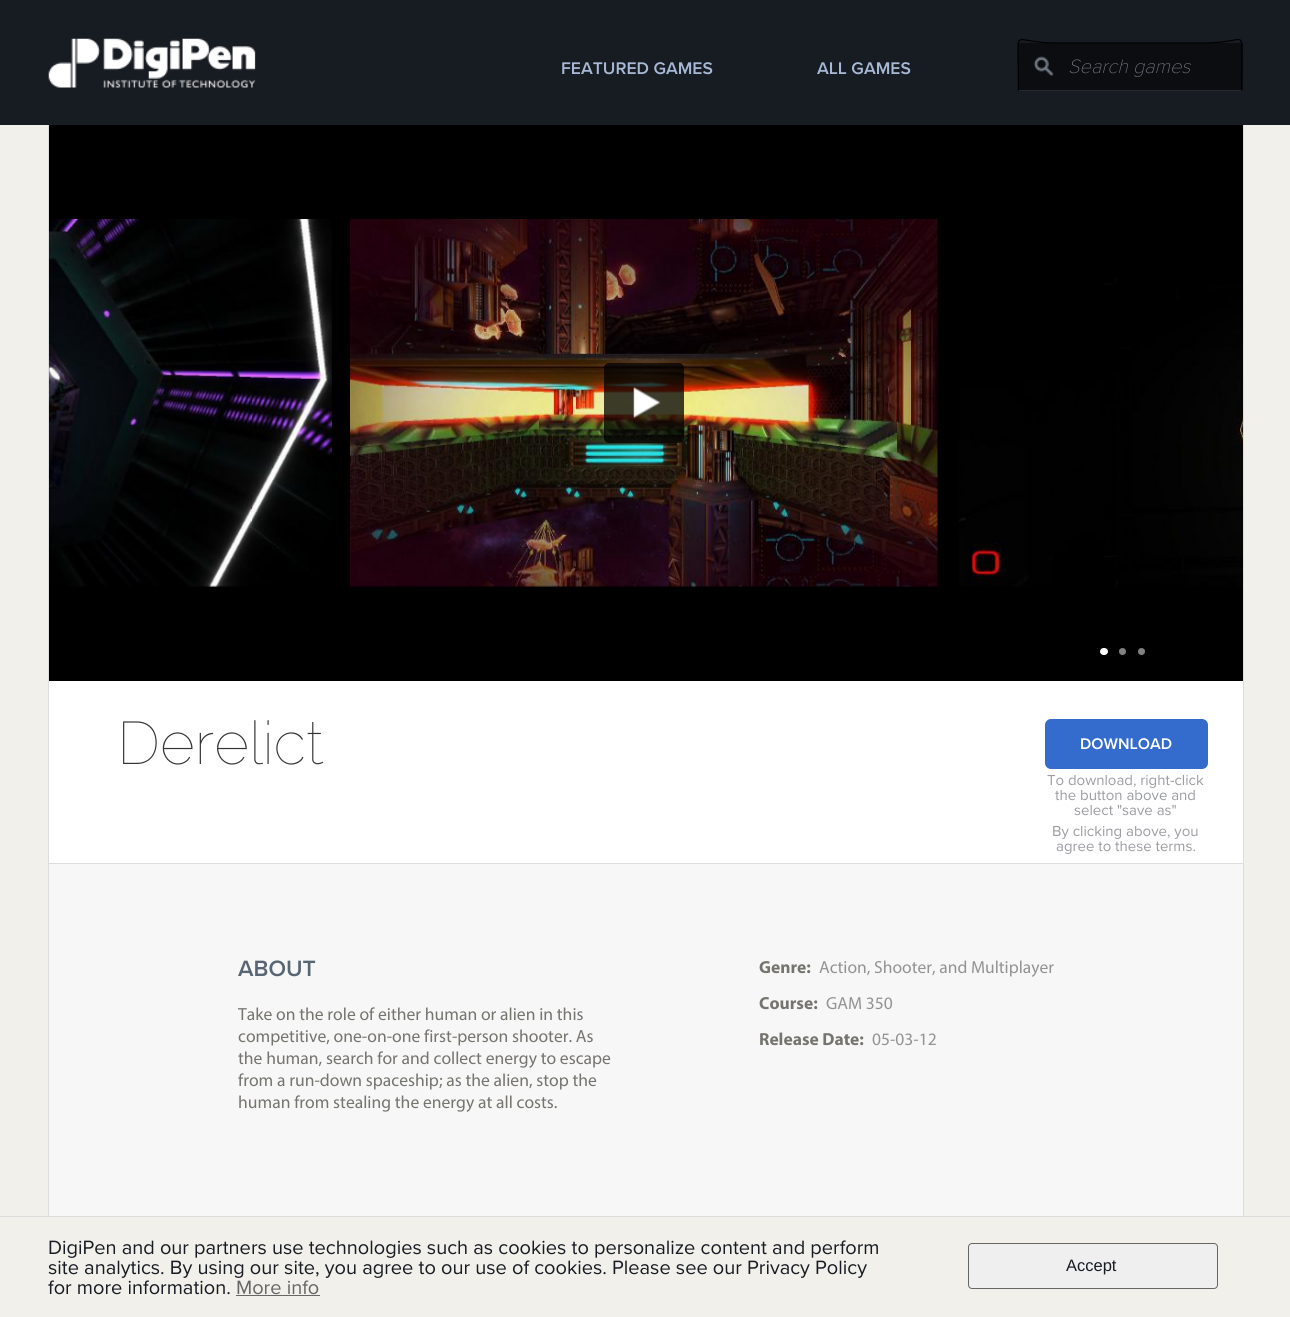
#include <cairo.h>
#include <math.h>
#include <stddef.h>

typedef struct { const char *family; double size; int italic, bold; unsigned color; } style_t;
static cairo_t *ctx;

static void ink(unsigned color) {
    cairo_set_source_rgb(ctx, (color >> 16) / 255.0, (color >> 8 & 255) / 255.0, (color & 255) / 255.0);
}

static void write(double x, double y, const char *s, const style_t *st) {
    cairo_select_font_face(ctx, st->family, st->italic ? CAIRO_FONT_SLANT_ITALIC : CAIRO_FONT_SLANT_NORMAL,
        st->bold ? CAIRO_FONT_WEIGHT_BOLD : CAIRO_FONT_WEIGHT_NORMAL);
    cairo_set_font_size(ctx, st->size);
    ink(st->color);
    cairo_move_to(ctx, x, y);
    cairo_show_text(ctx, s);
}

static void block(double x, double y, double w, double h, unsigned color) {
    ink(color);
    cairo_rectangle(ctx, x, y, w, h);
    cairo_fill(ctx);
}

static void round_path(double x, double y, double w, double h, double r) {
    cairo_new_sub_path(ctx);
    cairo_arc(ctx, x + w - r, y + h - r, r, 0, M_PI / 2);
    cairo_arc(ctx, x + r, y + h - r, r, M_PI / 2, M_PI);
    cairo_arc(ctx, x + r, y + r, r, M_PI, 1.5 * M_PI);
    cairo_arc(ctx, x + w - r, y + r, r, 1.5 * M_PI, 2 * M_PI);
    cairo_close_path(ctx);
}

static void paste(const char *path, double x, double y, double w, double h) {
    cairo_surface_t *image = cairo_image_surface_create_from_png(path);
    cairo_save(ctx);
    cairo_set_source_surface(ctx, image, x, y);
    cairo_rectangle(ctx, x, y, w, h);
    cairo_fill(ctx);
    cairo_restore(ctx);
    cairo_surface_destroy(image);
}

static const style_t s1 = {"Proxima Nova SemiBold", 17.5, 0, 0, 0xa7b8d5};
static const style_t s2 = {"Proxima Nova Thin", 20, 1, 0, 0x777f8a};
static const style_t s3 = {"Raleway Thin", 60, 0, 0, 0x343434};
static const style_t s4 = {"Proxima Nova SemiBold", 16, 0, 0, 0xffffff};
static const style_t s5 = {"Proxima Nova", 15, 0, 0, 0x9c9da2};
static const style_t s6 = {"Proxima Nova SemiBold", 23, 0, 0, 0x586673};
static const style_t s7 = {"Myriad", 17.6, 0, 0, 0x76746e};
static const style_t s8 = {"Myriad", 17.5, 0, 1, 0x76746e};
static const style_t s9 = {"Myriad", 17.5, 0, 0, 0x939393};
static const style_t s10 = {"Proxima Nova", 20, 0, 0, 0x171b23};
static const style_t s11 = {"Proxima Nova", 20, 0, 0, 0x666666};
static const style_t s12 = {"Liberation Sans", 16.5, 0, 0, 0x171b23};

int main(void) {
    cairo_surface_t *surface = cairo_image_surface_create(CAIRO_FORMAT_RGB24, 1290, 1317);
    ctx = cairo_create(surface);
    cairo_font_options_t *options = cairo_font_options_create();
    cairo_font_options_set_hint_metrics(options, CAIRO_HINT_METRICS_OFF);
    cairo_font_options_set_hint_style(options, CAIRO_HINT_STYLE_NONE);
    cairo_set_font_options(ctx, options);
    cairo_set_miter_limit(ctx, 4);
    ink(0xf2f0ea);
    cairo_paint(ctx);
    block(0, 0, 1290, 125, 0x171b22);
    paste("pic1.png", 48, 38, 208, 50);
    write(561, 74, "FEATURED GAMES", &s1);
    write(817, 74, "ALL GAMES", &s1);
    ink(0x0b0d10);
    round_path(1018, 43, 225, 48, 1);
    cairo_fill(ctx);
    block(1019, 90, 223, 1, 0x262930);
    cairo_new_path(ctx);
    cairo_move_to(ctx, 1018.5, 90.5);
    cairo_line_to(ctx, 1018, 51.5);
    cairo_curve_to(ctx, 1018, 31, 1018.5, 43, 1056, 43);
    cairo_line_to(ctx, 1204, 43);
    cairo_curve_to(ctx, 1241.5, 43, 1242, 31, 1242, 51.5);
    cairo_line_to(ctx, 1241.5, 90.5);
    ink(0x000000);
    cairo_set_line_width(ctx, 1.2);
    cairo_stroke(ctx);
    paste("pic2.png", 1033, 56, 21, 21);
    write(1068, 73, "Search games", &s2);
    block(1243, 125, 1, 1091, 0xdddddd);
    block(48, 125, 1, 1091, 0xdddddd);
    block(49, 125, 1194, 556, 0x000000);
    paste("pic3.png", 49, 219, 283, 368);
    paste("pic4.png", 350, 219, 588, 368);
    cairo_set_source_rgba(ctx, 0, 0, 0, 0.75);
    round_path(604, 363, 80, 80, 5);
    cairo_fill(ctx);
    paste("pic5.png", 633, 387, 28, 32);
    paste("pic6.png", 959, 278, 284, 309);
    ink(0xffffff);
    round_path(1100, 648, 8, 7, 3.5);
    cairo_fill(ctx);
    ink(0x808080);
    cairo_arc(ctx, 1122.5, 651.5, 3.5, 0, 2 * M_PI);
    cairo_fill(ctx);
    cairo_arc(ctx, 1141.5, 651.5, 3.5, 0, 2 * M_PI);
    cairo_fill(ctx);
    block(49, 681, 1194, 182, 0xffffff);
    write(117, 764, "Derelict", &s3);
    ink(0x346cce);
    round_path(1045, 719, 163, 50, 6);
    cairo_fill(ctx);
    write(1080, 749, "DOWNLOAD", &s4);
    write(1047, 785, "To download, right-click", &s5);
    write(1055, 800, "the button above and", &s5);
    write(1074, 815, "select \"save as\"", &s5);
    write(1052, 836, "By clicking above, you", &s5);
    write(1056, 851, "agree to these terms.", &s5);
    block(49, 863, 1194, 1, 0xdddddd);
    block(49, 864, 1194, 352, 0xf7f7f8);
    write(238, 976, "ABOUT", &s6);
    write(238, 1020, "Take on the role of either human or alien in this", &s7);
    write(238, 1042, "competitive, one-on-one first-person shooter. As", &s7);
    write(238, 1064, "the human, search for and collect energy to escape", &s7);
    write(238, 1086, "from a run-down spaceship; as the alien, stop the", &s7);
    write(238, 1108, "human from stealing the energy at all costs.", &s7);
    write(759, 973, "Genre:", &s8);
    write(819, 973, "Action, Shooter, and Multiplayer", &s9);
    write(759, 1009, "Course:", &s8);
    write(826, 1009, "GAM 350", &s9);
    write(759, 1045, "Release Date:", &s8);
    write(872, 1045, "05-03-12", &s9);
    block(0, 1216, 1290, 1, 0xdddddd);
    write(48, 1254, "DigiPen and our partners use technologies such as cookies to personalize content and perform", &s10);
    write(48, 1274, "site analytics. By using our site, you agree to our use of cookies. Please see our Privacy Policy", &s10);
    write(48, 1294, "for more information.", &s10);
    write(236, 1294, "More info", &s11);
    block(236, 1295, 84, 1, 0x666666);
    ink(0xefefef);
    round_path(968.5, 1243.5, 249, 45, 3.5);
    cairo_fill_preserve(ctx);
    ink(0x666666);
    cairo_set_line_width(ctx, 1);
    cairo_stroke(ctx);
    write(1066, 1271, "Accept", &s12);
    cairo_surface_write_to_png(surface, "screenshot.png");
    cairo_font_options_destroy(options);
    cairo_destroy(ctx);
    cairo_surface_destroy(surface);
    return 0;
}
